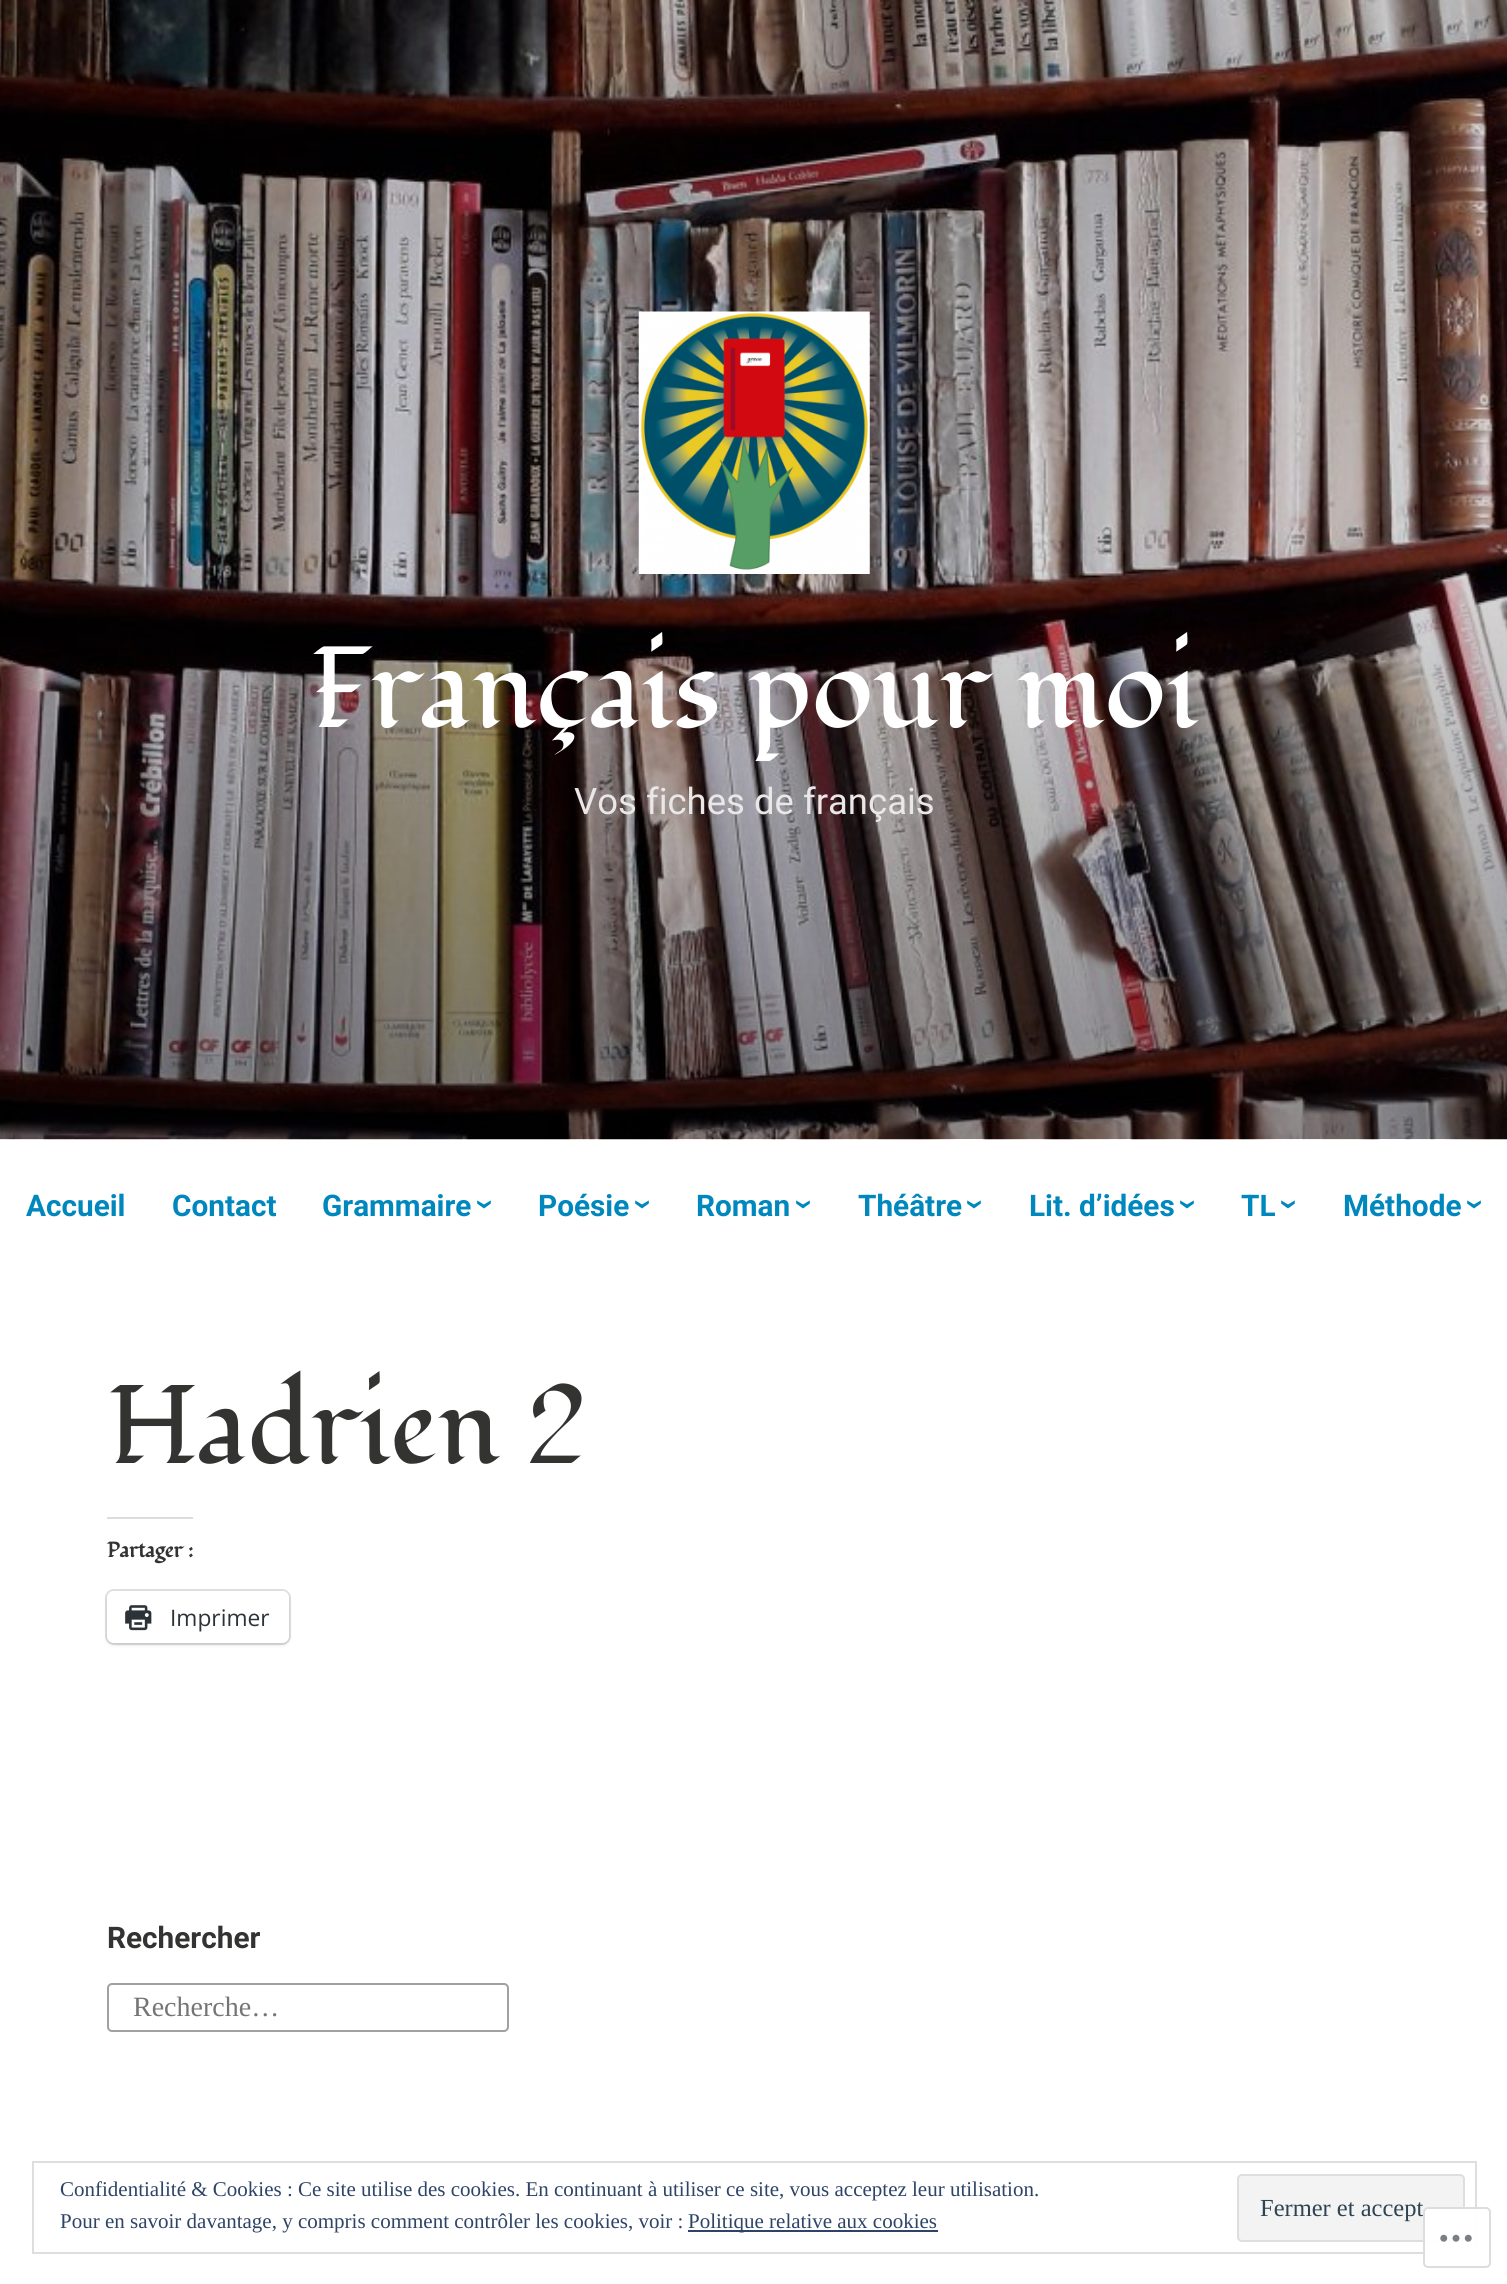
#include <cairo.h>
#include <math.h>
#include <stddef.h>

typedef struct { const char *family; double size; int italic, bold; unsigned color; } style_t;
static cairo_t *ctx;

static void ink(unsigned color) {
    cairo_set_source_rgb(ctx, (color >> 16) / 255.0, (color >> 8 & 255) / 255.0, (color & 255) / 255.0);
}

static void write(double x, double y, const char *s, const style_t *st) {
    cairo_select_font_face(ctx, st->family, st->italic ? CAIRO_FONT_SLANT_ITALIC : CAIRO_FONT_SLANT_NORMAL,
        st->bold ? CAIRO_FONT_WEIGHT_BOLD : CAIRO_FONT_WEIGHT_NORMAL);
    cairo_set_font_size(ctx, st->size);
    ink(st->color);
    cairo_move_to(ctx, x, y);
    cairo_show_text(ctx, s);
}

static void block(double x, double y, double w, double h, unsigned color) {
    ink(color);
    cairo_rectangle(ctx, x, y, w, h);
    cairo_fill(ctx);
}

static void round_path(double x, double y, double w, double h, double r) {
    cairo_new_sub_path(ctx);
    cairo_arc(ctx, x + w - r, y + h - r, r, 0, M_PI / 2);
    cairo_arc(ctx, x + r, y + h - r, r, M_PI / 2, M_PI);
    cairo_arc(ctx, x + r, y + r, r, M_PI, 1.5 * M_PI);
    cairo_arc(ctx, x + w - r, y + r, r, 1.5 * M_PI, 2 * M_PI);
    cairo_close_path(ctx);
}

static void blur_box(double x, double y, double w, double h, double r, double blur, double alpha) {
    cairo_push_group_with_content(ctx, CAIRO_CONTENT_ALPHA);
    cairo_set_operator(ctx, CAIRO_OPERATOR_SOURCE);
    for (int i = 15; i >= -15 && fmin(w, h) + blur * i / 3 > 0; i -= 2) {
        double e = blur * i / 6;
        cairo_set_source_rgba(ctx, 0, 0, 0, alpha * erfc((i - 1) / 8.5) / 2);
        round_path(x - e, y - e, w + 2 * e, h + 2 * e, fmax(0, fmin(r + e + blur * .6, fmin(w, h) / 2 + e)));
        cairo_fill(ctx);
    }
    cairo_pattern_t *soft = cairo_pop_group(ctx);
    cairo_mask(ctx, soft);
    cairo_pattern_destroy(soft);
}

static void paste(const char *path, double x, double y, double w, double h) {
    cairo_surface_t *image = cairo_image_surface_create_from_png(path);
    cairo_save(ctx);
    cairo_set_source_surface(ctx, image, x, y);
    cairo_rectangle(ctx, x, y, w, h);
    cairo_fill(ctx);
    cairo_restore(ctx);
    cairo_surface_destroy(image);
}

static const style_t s1 = {"Fondamento", 114.75, 0, 0, 0xffffff};
static const style_t s2 = {"Roboto", 36.5, 0, 0, 0xe9e7e8};
static const style_t s3 = {"Roboto", 29.75, 0, 1, 0x0087be};
static const style_t s4 = {"Roboto", 35, 0, 1, 0x0087be};
static const style_t s5 = {"Fondamento", 111, 0, 0, 0x333332};
static const style_t s6 = {"Fondamento", 21, 0, 1, 0x333332};
static const style_t s7 = {"Open Sans", 22.75, 0, 0, 0x2c3338};
static const style_t s8 = {"Roboto", 29.75, 0, 1, 0x333332};
static const style_t s9 = {"Liberation Serif", 28, 0, 0, 0x757575};
static const style_t s10 = {"Liberation Serif", 21, 0, 0, 0x2e4467};
static const style_t s11 = {"Liberation Serif", 24.5, 0, 0, 0x2e4453};

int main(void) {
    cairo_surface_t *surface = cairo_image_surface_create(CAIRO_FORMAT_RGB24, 1507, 2284);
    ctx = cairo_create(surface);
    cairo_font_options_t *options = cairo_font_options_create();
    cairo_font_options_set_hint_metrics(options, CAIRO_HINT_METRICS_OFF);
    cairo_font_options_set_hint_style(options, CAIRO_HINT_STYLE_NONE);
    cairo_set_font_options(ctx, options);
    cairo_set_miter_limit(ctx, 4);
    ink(0xffffff);
    cairo_paint(ctx);
    paste("pic1.png", 0, 0, 1507, 1140);
    paste("pic2.png", 638, 311, 232, 263);
    write(310, 727, "Français pour moi", &s1);
    write(574, 814, "Vos fiches de français", &s2);
    write(26, 1216, "Accueil", &s3);
    write(172, 1216, "Contact", &s3);
    write(322, 1216, "Grammaire", &s3);
    cairo_save(ctx);
    cairo_translate(ctx, 475, 1199);
    cairo_rotate(ctx, 90 * M_PI / 180);
    write(0, 0, "›", &s4);
    cairo_restore(ctx);
    write(538, 1216, "Poésie", &s3);
    cairo_save(ctx);
    cairo_translate(ctx, 633, 1199);
    cairo_rotate(ctx, 90 * M_PI / 180);
    write(0, 0, "›", &s4);
    cairo_restore(ctx);
    write(696, 1216, "Roman", &s3);
    cairo_save(ctx);
    cairo_translate(ctx, 794, 1199);
    cairo_rotate(ctx, 90 * M_PI / 180);
    write(0, 0, "›", &s4);
    cairo_restore(ctx);
    write(858, 1216, "Théâtre", &s3);
    cairo_save(ctx);
    cairo_translate(ctx, 965, 1199);
    cairo_rotate(ctx, 90 * M_PI / 180);
    write(0, 0, "›", &s4);
    cairo_restore(ctx);
    write(1029, 1216, "Lit. d’idées", &s3);
    cairo_save(ctx);
    cairo_translate(ctx, 1178, 1199);
    cairo_rotate(ctx, 90 * M_PI / 180);
    write(0, 0, "›", &s4);
    cairo_restore(ctx);
    write(1241, 1216, "TL", &s3);
    cairo_save(ctx);
    cairo_translate(ctx, 1279, 1199);
    cairo_rotate(ctx, 90 * M_PI / 180);
    write(0, 0, "›", &s4);
    cairo_restore(ctx);
    write(1343, 1216, "Méthode", &s3);
    cairo_save(ctx);
    cairo_translate(ctx, 1465, 1199);
    cairo_rotate(ctx, 90 * M_PI / 180);
    write(0, 0, "›", &s4);
    cairo_restore(ctx);
    write(107, 1463, "Hadrien 2", &s5);
    block(107, 1517, 86, 2, 0xdcdcde);
    write(107, 1557, "Partager :", &s6);
    round_path(106, 1590, 184, 54, 8);
    ink(0xe0e0e0);
    cairo_stroke(ctx);
    ink(0x000000);
    blur_box(107, 1593, 182, 52, 7, 2, 0.12);
    ink(0xffffff);
    round_path(107, 1591, 182, 52, 7);
    cairo_fill(ctx);
    paste("pic3.png", 125, 1605, 27, 26);
    write(170, 1626, "Imprimer", &s7);
    write(107, 1948, "Rechercher", &s8);
    round_path(108, 1984, 400, 47, 4);
    ink(0xa1a1a1);
    cairo_stroke(ctx);
    write(133, 2016, "Recherche…", &s9);
    cairo_rectangle(ctx, 33, 2162, 1443, 91);
    ink(0xdedede);
    cairo_stroke(ctx);
    write(60, 2196, "Confidentialité & Cookies : Ce site utilise des cookies. En continuant à utiliser ce site, vous acceptez leur utilisation.", &s10);
    write(60, 2228, "Pour en savoir davantage, y compris comment contrôler les cookies, voir :", &s10);
    block(688, 2230, 250, 2, 0x2e4467);
    write(688, 2228, "Politique relative aux cookies", &s10);
    ink(0xf3f3f3);
    round_path(1238, 2175, 226, 66, 4);
    cairo_fill_preserve(ctx);
    ink(0xdedede);
    cairo_stroke(ctx);
    write(1260, 2216, "Fermer et accept", &s11);
    cairo_set_source_rgba(ctx, 1, 1, 1, 0.98);
    round_path(1423, 2207, 68, 61, 5);
    cairo_fill(ctx);
    round_path(1424, 2208, 66, 59, 4);
    cairo_set_source_rgba(ctx, 0.863, 0.863, 0.871, 0.98);
    cairo_stroke(ctx);
    paste("pic4.png", 1440, 2234, 32, 8);
    cairo_surface_write_to_png(surface, "screenshot.png");
    cairo_font_options_destroy(options);
    cairo_destroy(ctx);
    cairo_surface_destroy(surface);
    return 0;
}
